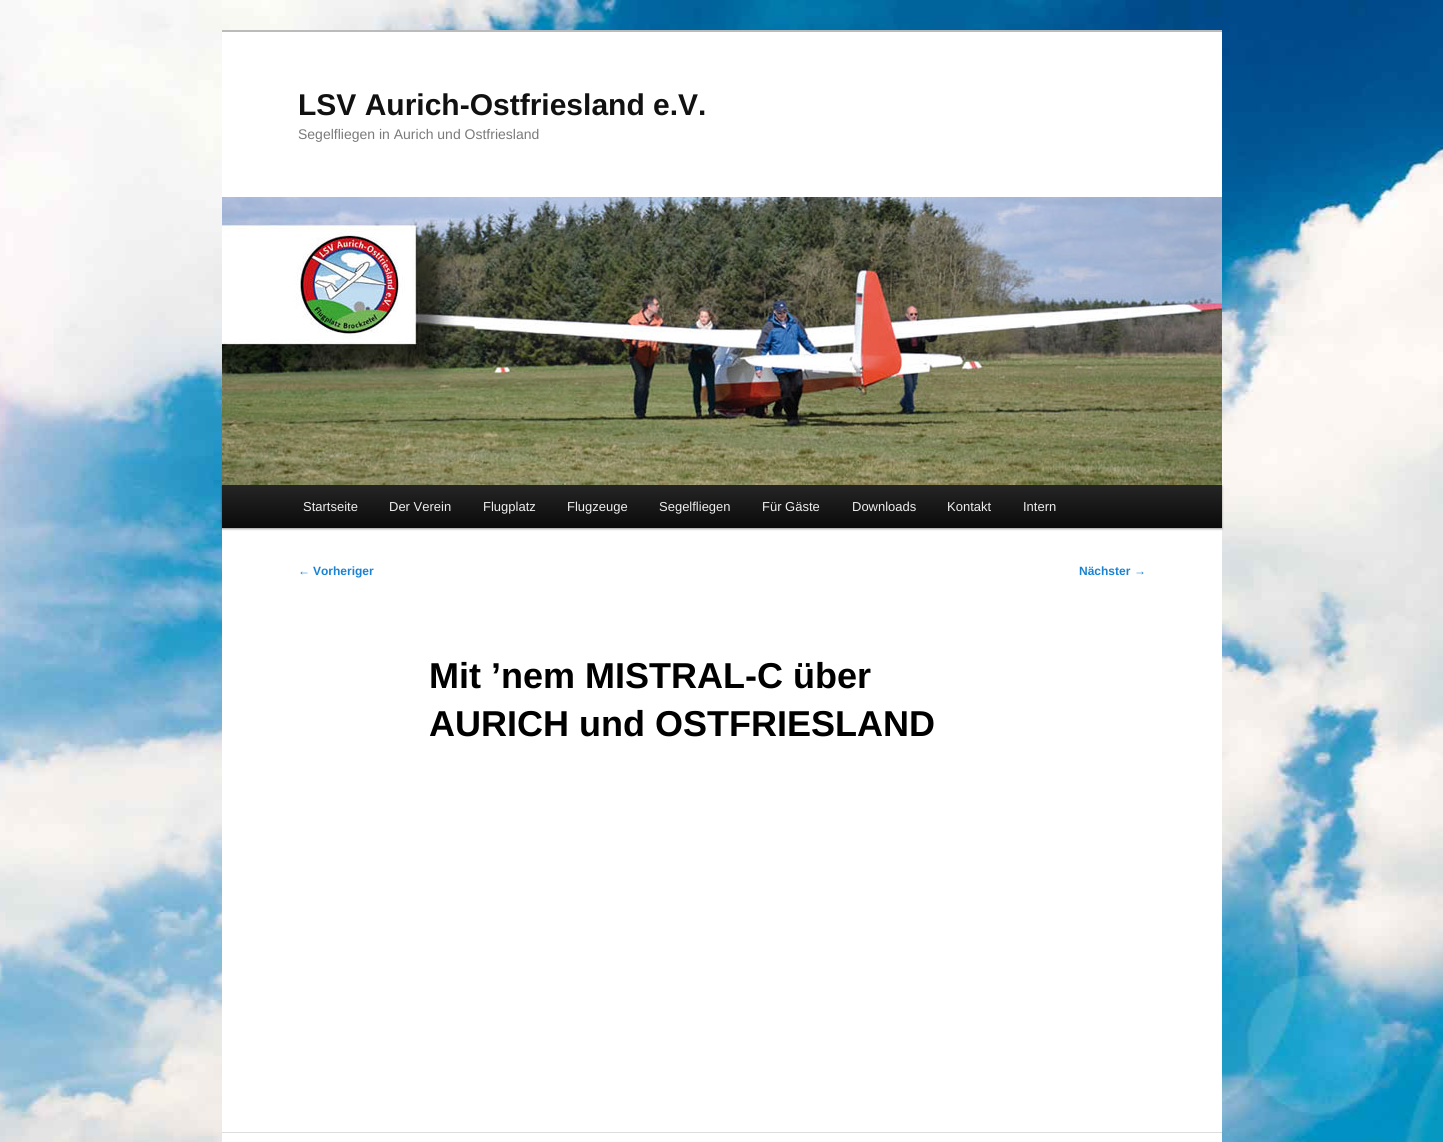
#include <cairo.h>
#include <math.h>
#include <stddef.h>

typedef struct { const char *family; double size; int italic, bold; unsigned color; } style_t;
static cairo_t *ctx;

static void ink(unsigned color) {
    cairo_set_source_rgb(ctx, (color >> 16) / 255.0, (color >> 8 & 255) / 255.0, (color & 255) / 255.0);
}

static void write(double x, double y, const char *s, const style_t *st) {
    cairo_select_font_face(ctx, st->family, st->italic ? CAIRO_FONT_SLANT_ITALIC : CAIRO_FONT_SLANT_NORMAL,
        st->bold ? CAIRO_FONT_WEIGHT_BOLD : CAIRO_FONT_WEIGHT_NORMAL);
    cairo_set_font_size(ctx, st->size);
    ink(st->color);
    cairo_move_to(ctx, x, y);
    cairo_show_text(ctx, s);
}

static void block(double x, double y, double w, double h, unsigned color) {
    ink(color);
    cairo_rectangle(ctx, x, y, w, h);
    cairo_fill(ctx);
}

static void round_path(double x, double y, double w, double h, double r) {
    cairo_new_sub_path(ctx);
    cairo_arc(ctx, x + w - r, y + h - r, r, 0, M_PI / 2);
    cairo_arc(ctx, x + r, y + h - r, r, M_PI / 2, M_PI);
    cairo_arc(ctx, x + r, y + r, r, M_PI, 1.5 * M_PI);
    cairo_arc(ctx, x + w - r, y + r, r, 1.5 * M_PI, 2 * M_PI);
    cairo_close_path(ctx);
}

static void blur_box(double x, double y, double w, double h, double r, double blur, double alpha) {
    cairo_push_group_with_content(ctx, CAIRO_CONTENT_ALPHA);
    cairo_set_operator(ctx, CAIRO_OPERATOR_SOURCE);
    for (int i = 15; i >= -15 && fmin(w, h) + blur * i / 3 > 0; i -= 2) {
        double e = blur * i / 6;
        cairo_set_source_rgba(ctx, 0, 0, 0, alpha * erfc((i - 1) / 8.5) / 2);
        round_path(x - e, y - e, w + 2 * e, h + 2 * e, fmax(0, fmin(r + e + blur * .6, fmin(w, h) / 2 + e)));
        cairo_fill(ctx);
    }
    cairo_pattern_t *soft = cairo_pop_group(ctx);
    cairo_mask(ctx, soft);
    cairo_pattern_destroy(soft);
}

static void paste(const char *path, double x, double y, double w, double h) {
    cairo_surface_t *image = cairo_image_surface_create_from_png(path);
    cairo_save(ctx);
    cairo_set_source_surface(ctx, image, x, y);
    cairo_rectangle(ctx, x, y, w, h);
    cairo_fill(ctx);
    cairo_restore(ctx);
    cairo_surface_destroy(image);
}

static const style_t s1 = {"Liberation Sans", 30, 0, 1, 0x111111};
static const style_t s2 = {"Liberation Sans", 14, 0, 0, 0x7a7a7a};
static const style_t s3 = {"Liberation Sans", 13, 0, 0, 0xeeeeee};
static const style_t s4 = {"Liberation Sans", 12, 0, 0, 0x1982d1};
static const style_t s5 = {"Liberation Sans", 12, 0, 1, 0x1982d1};
static const style_t s6 = {"Liberation Sans", 36, 0, 1, 0x000000};

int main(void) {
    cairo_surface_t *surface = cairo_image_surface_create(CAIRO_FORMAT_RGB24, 1443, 1142);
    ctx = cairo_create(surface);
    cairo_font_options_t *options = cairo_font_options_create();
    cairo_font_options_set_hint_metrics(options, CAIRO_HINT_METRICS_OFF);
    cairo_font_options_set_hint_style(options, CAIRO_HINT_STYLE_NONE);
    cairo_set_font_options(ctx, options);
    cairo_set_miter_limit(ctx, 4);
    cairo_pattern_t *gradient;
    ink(0xffffff);
    cairo_paint(ctx);
    paste("pic1.png", 0, 0, 1443, 1142);
    block(222, 32, 1000, 1110, 0xffffff);
    block(222, 30, 1000, 2, 0xbbbbbb);
    write(298, 115, "LSV Aurich-Ostfriesland e.V.", &s1);
    write(298, 139, "Segelfliegen in Aurich und Ostfriesland", &s2);
    ink(0x000000);
    blur_box(222, 486, 1000, 43, 0, 1, 0.4);
    paste("pic2.png", 222, 197, 1000, 288);
    gradient = cairo_pattern_create_linear(722, 485, 722, 528);
    cairo_pattern_add_color_stop_rgba(gradient, 0, 0.145, 0.145, 0.145, 1);
    cairo_pattern_add_color_stop_rgba(gradient, 1, 0.039, 0.039, 0.039, 1);
    cairo_set_source(ctx, gradient);
    cairo_pattern_destroy(gradient);
    cairo_rectangle(ctx, 222, 485, 1000, 43);
    cairo_fill(ctx);
    write(303, 511, "Startseite", &s3);
    write(389, 511, "Der Verein", &s3);
    write(483, 511, "Flugplatz", &s3);
    write(567, 511, "Flugzeuge", &s3);
    write(659, 511, "Segelfliegen", &s3);
    write(762, 511, "Für Gäste", &s3);
    write(852, 511, "Downloads", &s3);
    write(947, 511, "Kontakt", &s3);
    write(1023, 511, "Intern", &s3);
    write(298, 575, "←", &s4);
    write(313, 575, "Vorheriger", &s5);
    write(1079, 575, "Nächster", &s5);
    write(1134, 575, "→", &s4);
    write(429, 688, "Mit ’nem MISTRAL-C über", &s6);
    write(429, 736, "AURICH und OSTFRIESLAND", &s6);
    block(222, 1132, 1000, 1, 0xdddddd);
    cairo_surface_write_to_png(surface, "screenshot.png");
    cairo_font_options_destroy(options);
    cairo_destroy(ctx);
    cairo_surface_destroy(surface);
    return 0;
}
